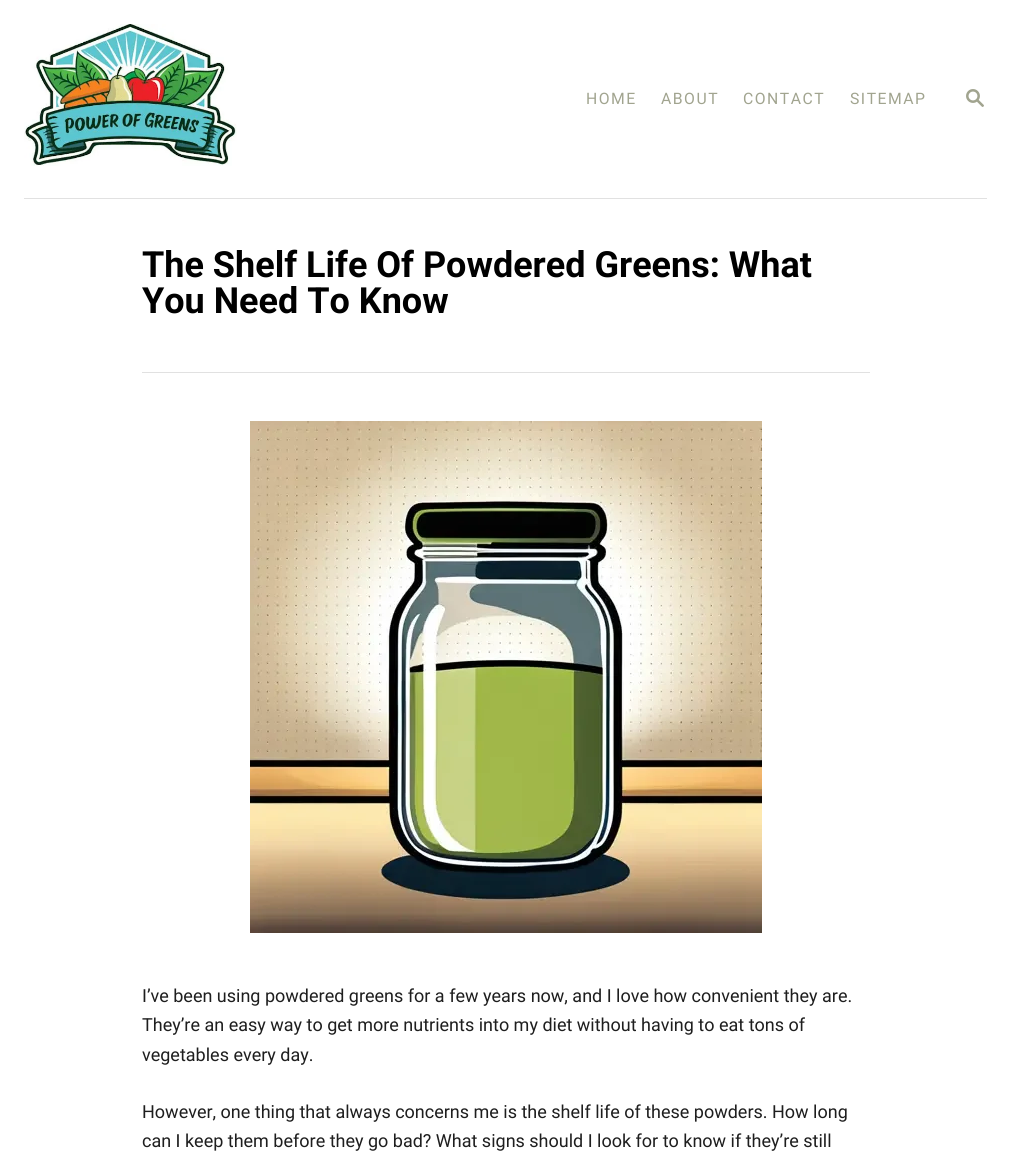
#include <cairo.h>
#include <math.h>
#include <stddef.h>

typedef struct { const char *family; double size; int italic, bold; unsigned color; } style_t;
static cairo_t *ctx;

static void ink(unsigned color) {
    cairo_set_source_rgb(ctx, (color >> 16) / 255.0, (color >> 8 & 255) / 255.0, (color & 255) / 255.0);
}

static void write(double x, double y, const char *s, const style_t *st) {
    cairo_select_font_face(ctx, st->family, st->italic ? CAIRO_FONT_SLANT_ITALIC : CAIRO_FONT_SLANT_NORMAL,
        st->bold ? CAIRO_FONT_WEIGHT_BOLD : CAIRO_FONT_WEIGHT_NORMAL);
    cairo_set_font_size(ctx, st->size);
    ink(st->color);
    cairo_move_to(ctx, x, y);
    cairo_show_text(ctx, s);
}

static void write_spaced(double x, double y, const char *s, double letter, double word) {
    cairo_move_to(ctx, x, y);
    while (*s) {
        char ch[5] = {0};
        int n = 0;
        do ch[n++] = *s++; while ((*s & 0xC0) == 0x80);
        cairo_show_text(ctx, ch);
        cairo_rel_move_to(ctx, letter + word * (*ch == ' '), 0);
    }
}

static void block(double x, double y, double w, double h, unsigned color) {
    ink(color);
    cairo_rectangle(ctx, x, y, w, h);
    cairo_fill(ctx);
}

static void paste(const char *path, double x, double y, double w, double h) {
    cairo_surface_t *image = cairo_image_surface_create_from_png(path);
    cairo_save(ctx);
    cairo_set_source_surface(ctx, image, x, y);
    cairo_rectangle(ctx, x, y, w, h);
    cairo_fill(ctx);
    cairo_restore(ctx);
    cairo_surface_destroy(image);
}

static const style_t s1 = {"Roboto", 36, 0, 1, 0x000000};
static const style_t s2 = {"Roboto", 18, 0, 0, 0x1e1e1e};

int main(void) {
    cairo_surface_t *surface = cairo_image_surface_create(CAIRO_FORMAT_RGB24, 1011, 1163);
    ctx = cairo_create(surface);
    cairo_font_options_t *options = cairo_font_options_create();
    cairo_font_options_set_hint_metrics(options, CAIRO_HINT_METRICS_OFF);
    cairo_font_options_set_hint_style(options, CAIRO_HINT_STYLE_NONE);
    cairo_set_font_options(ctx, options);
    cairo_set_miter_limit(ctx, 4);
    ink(0xffffff);
    cairo_paint(ctx);
    block(24, 198, 963, 1, 0xe1e1e1);
    paste("pic1.png", 24, 24, 213, 142);
    cairo_select_font_face(ctx, "Roboto", CAIRO_FONT_SLANT_NORMAL, CAIRO_FONT_WEIGHT_NORMAL);
    cairo_set_font_size(ctx, 15.75);
    ink(0xa1a48f);
    write_spaced(586, 104, "HOME", 1.5, 0);
    write_spaced(661, 104, "ABOUT", 1.5, 0);
    write_spaced(743, 104, "CONTACT", 1.5, 0);
    write_spaced(850, 104, "SITEMAP", 1.5, 0);
    paste("pic2.png", 966, 89, 18, 18);
    block(142, 372, 728, 1, 0xe1e1e1);
    write(142, 277, "The Shelf Life Of Powdered Greens: What", &s1);
    write(142, 313, "You Need To Know", &s1);
    paste("pic3.png", 250, 421, 512, 512);
    write(142, 1002, "I’ve been using powdered greens for a few years now, and I love how convenient they are.", &s2);
    write(142, 1031, "They’re an easy way to get more nutrients into my diet without having to eat tons of", &s2);
    write(142, 1061, "vegetables every day.", &s2);
    write(142, 1118, "However, one thing that always concerns me is the shelf life of these powders. How long", &s2);
    write(142, 1147, "can I keep them before they go bad? What signs should I look for to know if they’re still", &s2);
    cairo_surface_write_to_png(surface, "screenshot.png");
    cairo_font_options_destroy(options);
    cairo_destroy(ctx);
    cairo_surface_destroy(surface);
    return 0;
}
